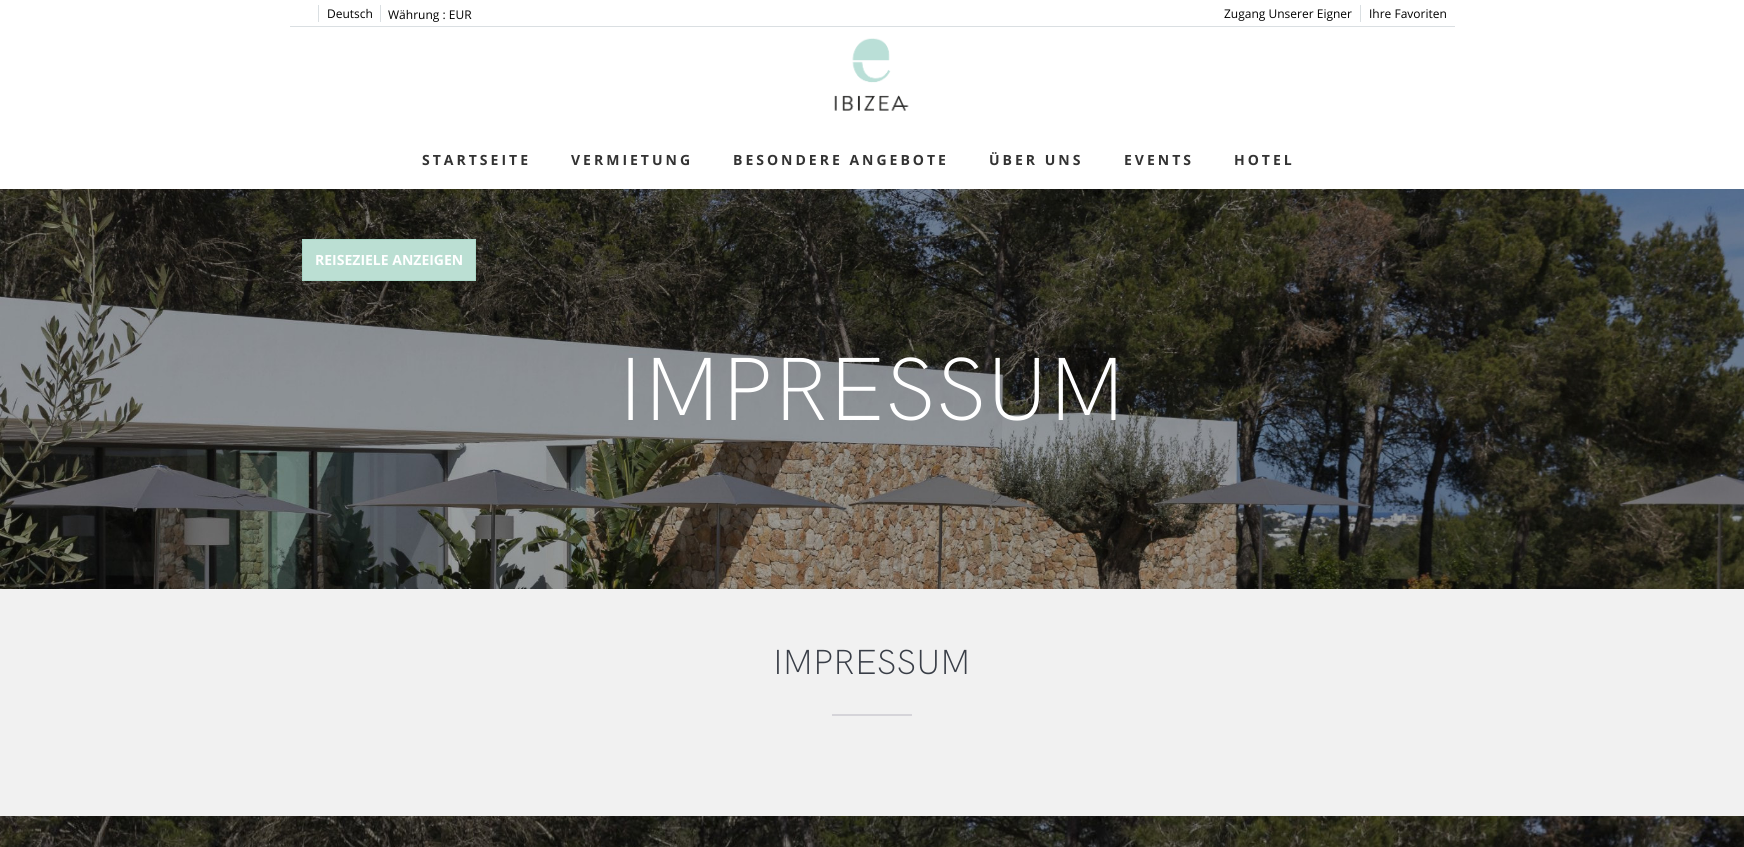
#include <cairo.h>
#include <math.h>
#include <stddef.h>

typedef struct { const char *family; double size; int italic, bold; unsigned color; } style_t;
static cairo_t *ctx;

static void ink(unsigned color) {
    cairo_set_source_rgb(ctx, (color >> 16) / 255.0, (color >> 8 & 255) / 255.0, (color & 255) / 255.0);
}

static void write(double x, double y, const char *s, const style_t *st) {
    cairo_select_font_face(ctx, st->family, st->italic ? CAIRO_FONT_SLANT_ITALIC : CAIRO_FONT_SLANT_NORMAL,
        st->bold ? CAIRO_FONT_WEIGHT_BOLD : CAIRO_FONT_WEIGHT_NORMAL);
    cairo_set_font_size(ctx, st->size);
    ink(st->color);
    cairo_move_to(ctx, x, y);
    cairo_show_text(ctx, s);
}

static void write_spaced(double x, double y, const char *s, double letter, double word) {
    cairo_move_to(ctx, x, y);
    while (*s) {
        char ch[5] = {0};
        int n = 0;
        do ch[n++] = *s++; while ((*s & 0xC0) == 0x80);
        cairo_show_text(ctx, ch);
        cairo_rel_move_to(ctx, letter + word * (*ch == ' '), 0);
    }
}

static void block(double x, double y, double w, double h, unsigned color) {
    ink(color);
    cairo_rectangle(ctx, x, y, w, h);
    cairo_fill(ctx);
}

static void paste(const char *path, double x, double y, double w, double h) {
    cairo_surface_t *image = cairo_image_surface_create_from_png(path);
    cairo_save(ctx);
    cairo_set_source_surface(ctx, image, x, y);
    cairo_rectangle(ctx, x, y, w, h);
    cairo_fill(ctx);
    cairo_restore(ctx);
    cairo_surface_destroy(image);
}

static const style_t s1 = {"Open Sans", 12, 0, 0, 0x000000};
static const style_t s2 = {"Open Sans", 14, 0, 1, 0xffffff};
static const style_t s3 = {"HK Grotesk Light", 90, 0, 0, 0xffffff};
static const style_t s4 = {"HK Grotesk Light", 35, 0, 0, 0x393e47};

int main(void) {
    cairo_surface_t *surface = cairo_image_surface_create(CAIRO_FORMAT_RGB24, 1744, 847);
    ctx = cairo_create(surface);
    cairo_font_options_t *options = cairo_font_options_create();
    cairo_font_options_set_hint_metrics(options, CAIRO_HINT_METRICS_OFF);
    cairo_font_options_set_hint_style(options, CAIRO_HINT_STYLE_NONE);
    cairo_set_font_options(ctx, options);
    cairo_set_miter_limit(ctx, 4);
    ink(0xf1f1f1);
    cairo_paint(ctx);
    block(0, 0, 1744, 189, 0xffffff);
    block(290, 26, 1165, 1, 0xdadfe2);
    block(318, 5, 1, 17, 0xdadfe2);
    write(327, 18, "Deutsch", &s1);
    block(380, 5, 1, 17, 0xdadfe2);
    write(388, 19, "Währung : EUR", &s1);
    write(1224, 18, "Zugang Unserer Eigner", &s1);
    block(1360, 5, 1, 17, 0xdadfe2);
    write(1369, 18, "Ihre Favoriten", &s1);
    paste("pic1.png", 834, 38, 75, 73);
    cairo_select_font_face(ctx, "Open Sans", CAIRO_FONT_SLANT_NORMAL, CAIRO_FONT_WEIGHT_BOLD);
    cairo_set_font_size(ctx, 14);
    ink(0x333333);
    write_spaced(422, 165, "STARTSEITE", 3, 0);
    write_spaced(571, 165, "VERMIETUNG", 3, 0);
    write_spaced(733, 165, "BESONDERE ANGEBOTE", 3, 0);
    write_spaced(989, 165, "ÜBER UNS", 3, 0);
    write_spaced(1124, 165, "EVENTS", 3, 0);
    write_spaced(1234, 165, "HOTEL", 3, 0);
    paste("pic2.png", 0, 189, 1744, 400);
    ink(0xbbdfd3);
    cairo_rectangle(ctx, 302.5, 239.5, 173, 41);
    cairo_fill_preserve(ctx);
    ink(0xaad7c8);
    cairo_set_line_width(ctx, 1);
    cairo_stroke(ctx);
    write(315, 265, "REISEZIELE ANZEIGEN", &s2);
    write(618, 420, "IMPRESSUM", &s3);
    write(773, 674, "IMPRESSUM", &s4);
    block(832, 714, 80, 2, 0xd5d4d9);
    paste("pic3.png", 0, 816, 1744, 31);
    cairo_surface_write_to_png(surface, "screenshot.png");
    cairo_font_options_destroy(options);
    cairo_destroy(ctx);
    cairo_surface_destroy(surface);
    return 0;
}
